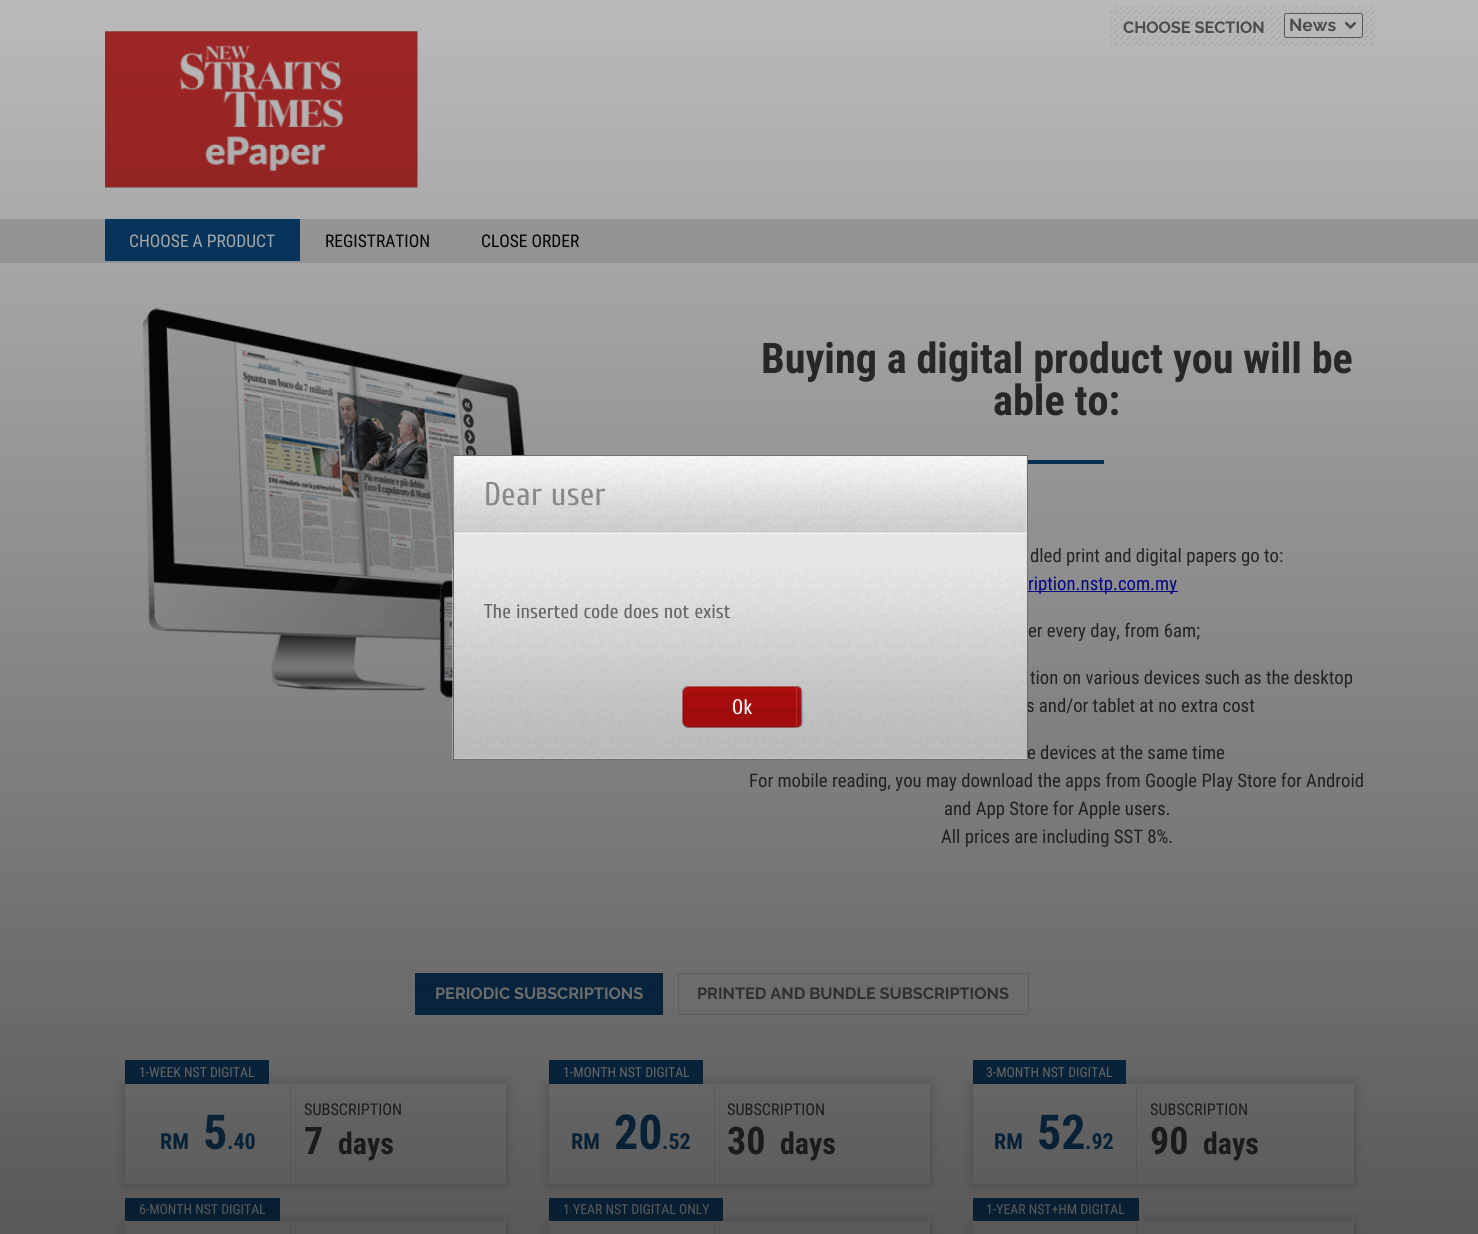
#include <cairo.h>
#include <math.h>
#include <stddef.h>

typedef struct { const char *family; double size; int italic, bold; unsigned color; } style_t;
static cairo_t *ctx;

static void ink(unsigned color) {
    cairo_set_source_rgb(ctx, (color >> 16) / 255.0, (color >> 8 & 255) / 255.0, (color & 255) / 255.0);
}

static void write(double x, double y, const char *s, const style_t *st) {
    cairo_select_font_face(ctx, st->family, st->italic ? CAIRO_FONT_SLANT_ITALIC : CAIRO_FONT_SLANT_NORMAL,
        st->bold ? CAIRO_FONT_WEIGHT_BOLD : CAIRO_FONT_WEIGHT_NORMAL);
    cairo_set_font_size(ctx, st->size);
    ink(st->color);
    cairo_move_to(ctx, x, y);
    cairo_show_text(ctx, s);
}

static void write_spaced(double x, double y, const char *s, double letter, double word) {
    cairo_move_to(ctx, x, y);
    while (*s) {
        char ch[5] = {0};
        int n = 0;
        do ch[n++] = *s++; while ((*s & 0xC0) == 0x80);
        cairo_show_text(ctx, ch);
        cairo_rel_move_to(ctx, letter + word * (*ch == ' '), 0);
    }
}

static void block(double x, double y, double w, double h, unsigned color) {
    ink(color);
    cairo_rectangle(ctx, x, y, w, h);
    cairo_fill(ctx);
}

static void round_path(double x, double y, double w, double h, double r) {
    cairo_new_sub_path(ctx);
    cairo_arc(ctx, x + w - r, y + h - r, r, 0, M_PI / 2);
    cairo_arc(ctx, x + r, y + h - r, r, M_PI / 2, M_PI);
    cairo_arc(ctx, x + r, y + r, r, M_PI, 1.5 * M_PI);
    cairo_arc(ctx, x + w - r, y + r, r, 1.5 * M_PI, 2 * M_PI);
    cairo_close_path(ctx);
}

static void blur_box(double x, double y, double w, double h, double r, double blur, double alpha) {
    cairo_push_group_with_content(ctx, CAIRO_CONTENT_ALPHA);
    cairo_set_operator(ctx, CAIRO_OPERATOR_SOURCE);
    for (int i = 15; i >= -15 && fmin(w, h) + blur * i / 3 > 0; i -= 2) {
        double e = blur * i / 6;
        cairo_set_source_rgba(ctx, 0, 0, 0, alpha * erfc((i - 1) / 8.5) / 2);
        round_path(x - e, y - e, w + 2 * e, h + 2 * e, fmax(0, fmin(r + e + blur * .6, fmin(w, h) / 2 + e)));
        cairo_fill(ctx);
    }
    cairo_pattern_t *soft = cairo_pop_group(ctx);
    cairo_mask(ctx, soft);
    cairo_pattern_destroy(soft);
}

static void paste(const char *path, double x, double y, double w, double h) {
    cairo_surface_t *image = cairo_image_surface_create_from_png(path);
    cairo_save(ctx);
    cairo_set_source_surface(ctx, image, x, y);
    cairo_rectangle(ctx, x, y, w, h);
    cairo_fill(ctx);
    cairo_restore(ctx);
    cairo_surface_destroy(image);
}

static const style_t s1 = {"Raleway", 16.25, 0, 1, 0x545454};
static const style_t s2 = {"Raleway", 17.5, 0, 1, 0x545454};
static const style_t s3 = {"Roboto Condensed", 17.5, 0, 0, 0xcecece};
static const style_t s4 = {"Roboto Condensed", 17.5, 0, 0, 0x020202};
static const style_t s5 = {"Roboto Condensed", 42.25, 0, 1, 0x303030};
static const style_t s6 = {"Roboto Condensed", 18.75, 0, 0, 0x303030};
static const style_t s7 = {"Roboto Condensed", 18.75, 0, 0, 0x0202c1};
static const style_t s8 = {"Raleway", 16.25, 0, 1, 0xcecece};
static const style_t s9 = {"Roboto Condensed", 13.75, 0, 0, 0xcecece};
static const style_t s10 = {"Roboto Condensed", 22, 0, 1, 0x053d6d};
static const style_t s11 = {"Roboto Condensed", 48, 0, 1, 0x053d6d};
static const style_t s12 = {"Roboto Condensed", 16.25, 0, 0, 0x303030};
static const style_t s13 = {"Roboto Condensed", 38, 0, 1, 0x303030};
static const style_t s14 = {"Roboto Condensed", 30, 0, 1, 0x303030};
static const style_t s15 = {"Cuprum", 20, 0, 0, 0x666666};
static const style_t s16 = {"Cuprum", 21, 0, 0, 0xffffff};

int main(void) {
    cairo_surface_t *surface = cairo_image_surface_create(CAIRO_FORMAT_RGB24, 1478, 1234);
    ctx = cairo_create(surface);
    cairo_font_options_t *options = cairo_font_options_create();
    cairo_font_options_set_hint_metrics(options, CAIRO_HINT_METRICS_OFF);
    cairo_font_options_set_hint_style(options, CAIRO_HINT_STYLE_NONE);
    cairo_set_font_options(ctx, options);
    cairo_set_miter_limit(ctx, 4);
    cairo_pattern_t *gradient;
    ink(0xcecece);
    cairo_paint(ctx);
    paste("pic1.png", 1110, 6, 265, 40);
    write(1123, 33, "CHOOSE SECTION", &s1);
    ink(0xcecece);
    round_path(1284.5, 13.5, 78, 24, 2);
    cairo_fill_preserve(ctx);
    ink(0x616161);
    cairo_set_line_width(ctx, 1);
    cairo_stroke(ctx);
    cairo_new_path(ctx);
    cairo_move_to(ctx, 1345.5, 22.5);
    cairo_line_to(ctx, 1350.5, 27.5);
    cairo_line_to(ctx, 1355.5, 22.5);
    ink(0x545454);
    cairo_set_line_width(ctx, 2.5);
    cairo_stroke(ctx);
    write(1289, 31, "News", &s2);
    paste("pic2.png", 105, 31, 313, 157);
    block(0, 219, 1478, 44, 0xb5b5b5);
    block(105, 219, 195, 42, 0x053d6d);
    write(129, 247, "CHOOSE A PRODUCT", &s3);
    write(325, 247, "REGISTRATION", &s4);
    write(481, 247, "CLOSE ORDER", &s4);
    paste("pic3.png", 142, 307, 383, 391);
    write(761, 373, "Buying a digital product you will be", &s5);
    write(993, 415, "able to:", &s5);
    block(1028, 460, 76, 4, 0x053d6d);
    write(1030, 562, "dled print and digital papers go to:", &s6);
    block(1028, 591, 150, 1, 0x0202c1);
    write(1028, 590, "ription.nstp.com.my", &s7);
    write(1028, 637, "er every day, from 6am;", &s6);
    write(1030, 684, "tion on various devices such as the desktop", &s6);
    write(1026, 712, "s and/or tablet at no extra cost", &s6);
    write(1027, 759, "e devices at the same time", &s6);
    write(749, 787, "For mobile reading, you may download the apps from Google Play Store for Android", &s6);
    write(944, 815, "and App Store for Apple users.", &s6);
    write(941, 843, "All prices are including SST 8%.", &s6);
    block(415, 973, 248, 42, 0x053d6d);
    write(435, 999, "PERIODIC SUBSCRIPTIONS", &s8);
    cairo_rectangle(ctx, 678.5, 973.5, 350, 41);
    ink(0xb2b2b2);
    cairo_set_line_width(ctx, 1);
    cairo_stroke(ctx);
    write(697, 999, "PRINTED AND BUNDLE SUBSCRIPTIONS", &s1);
    ink(0x303030);
    blur_box(125, 1084, 381, 100, 0, 5.5, 0.3);
    block(125, 1084, 381, 100, 0xcecece);
    block(125, 1060, 144, 24, 0x053d6d);
    write(139, 1077, "1-WEEK NST DIGITAL", &s9);
    block(290, 1084, 1, 100, 0xbcbcbc);
    write(160, 1149, "RM", &s10);
    write(203, 1149, "5", &s11);
    write(227, 1149, ".40", &s10);
    write(304, 1115, "SUBSCRIPTION", &s12);
    write(304, 1154, "7", &s13);
    write(338, 1154, "days", &s14);
    ink(0x303030);
    blur_box(549, 1084, 381, 100, 0, 5.5, 0.3);
    block(549, 1084, 381, 100, 0xcecece);
    block(549, 1060, 154, 24, 0x053d6d);
    write(563, 1077, "1-MONTH NST DIGITAL", &s9);
    block(714, 1084, 1, 100, 0xbcbcbc);
    write(571, 1149, "RM", &s10);
    write(614, 1149, "20", &s11);
    write(662, 1149, ".52", &s10);
    write(727, 1115, "SUBSCRIPTION", &s12);
    write(727, 1154, "30", &s13);
    write(780, 1154, "days", &s14);
    ink(0x303030);
    blur_box(973, 1084, 381, 100, 0, 5.5, 0.3);
    block(973, 1084, 381, 100, 0xcecece);
    block(973, 1060, 153, 24, 0x053d6d);
    write(986, 1077, "3-MONTH NST DIGITAL", &s9);
    block(1136, 1084, 1, 100, 0xbcbcbc);
    write(994, 1149, "RM", &s10);
    write(1037, 1149, "52", &s11);
    write(1085, 1149, ".92", &s10);
    write(1150, 1115, "SUBSCRIPTION", &s12);
    write(1150, 1154, "90", &s13);
    write(1203, 1154, "days", &s14);
    ink(0x303030);
    blur_box(125, 1221, 381, 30, 0, 5.5, 0.3);
    block(125, 1221, 381, 13, 0xcecece);
    block(125, 1198, 155, 23, 0x053d6d);
    write(139, 1214, "6-MONTH NST DIGITAL", &s9);
    block(290, 1221, 1, 13, 0xbcbcbc);
    ink(0x303030);
    blur_box(549, 1221, 381, 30, 0, 5.5, 0.3);
    block(549, 1221, 381, 13, 0xcecece);
    block(549, 1198, 174, 23, 0x053d6d);
    write(563, 1214, "1 YEAR NST DIGITAL ONLY", &s9);
    block(714, 1221, 1, 13, 0xbcbcbc);
    ink(0x303030);
    blur_box(973, 1221, 381, 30, 0, 5.5, 0.3);
    block(973, 1221, 381, 13, 0xcecece);
    block(973, 1198, 166, 23, 0x053d6d);
    write(986, 1214, "1-YEAR NST+HM DIGITAL", &s9);
    block(1136, 1221, 1, 13, 0xbcbcbc);
    gradient = cairo_pattern_create_linear(0, 0, 0, 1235);
    cairo_pattern_add_color_stop_rgba(gradient, 0, 0.043, 0.043, 0.043, 0.1);
    cairo_pattern_add_color_stop_rgba(gradient, 1, 0.043, 0.043, 0.043, 0.6);
    cairo_set_source(ctx, gradient);
    cairo_pattern_destroy(gradient);
    cairo_rectangle(ctx, 0, 0, 1478, 1234);
    cairo_fill(ctx);
    block(453, 455, 575, 305, 0xe5e5e5);
    paste("pic4.png", 452, 568, 576, 191);
    cairo_rectangle(ctx, 453.5, 455.5, 574, 304);
    cairo_set_source_rgba(ctx, 0.129, 0.129, 0.129, 0.6);
    cairo_stroke(ctx);
    paste("pic5.png", 453, 456, 574, 78);
    cairo_select_font_face(ctx, "Cuprum", CAIRO_FONT_SLANT_NORMAL, CAIRO_FONT_WEIGHT_NORMAL);
    cairo_set_font_size(ctx, 32.5);
    ink(0x888888);
    write_spaced(484, 505, "Dear user", 0.4, 0);
    write(484, 618, "The inserted code does not exist", &s15);
    paste("pic6.png", 682, 686, 115, 42);
    write(732, 714, "Ok", &s16);
    paste("pic7.png", 796, 686, 7, 42);
    cairo_surface_write_to_png(surface, "screenshot.png");
    cairo_font_options_destroy(options);
    cairo_destroy(ctx);
    cairo_surface_destroy(surface);
    return 0;
}
